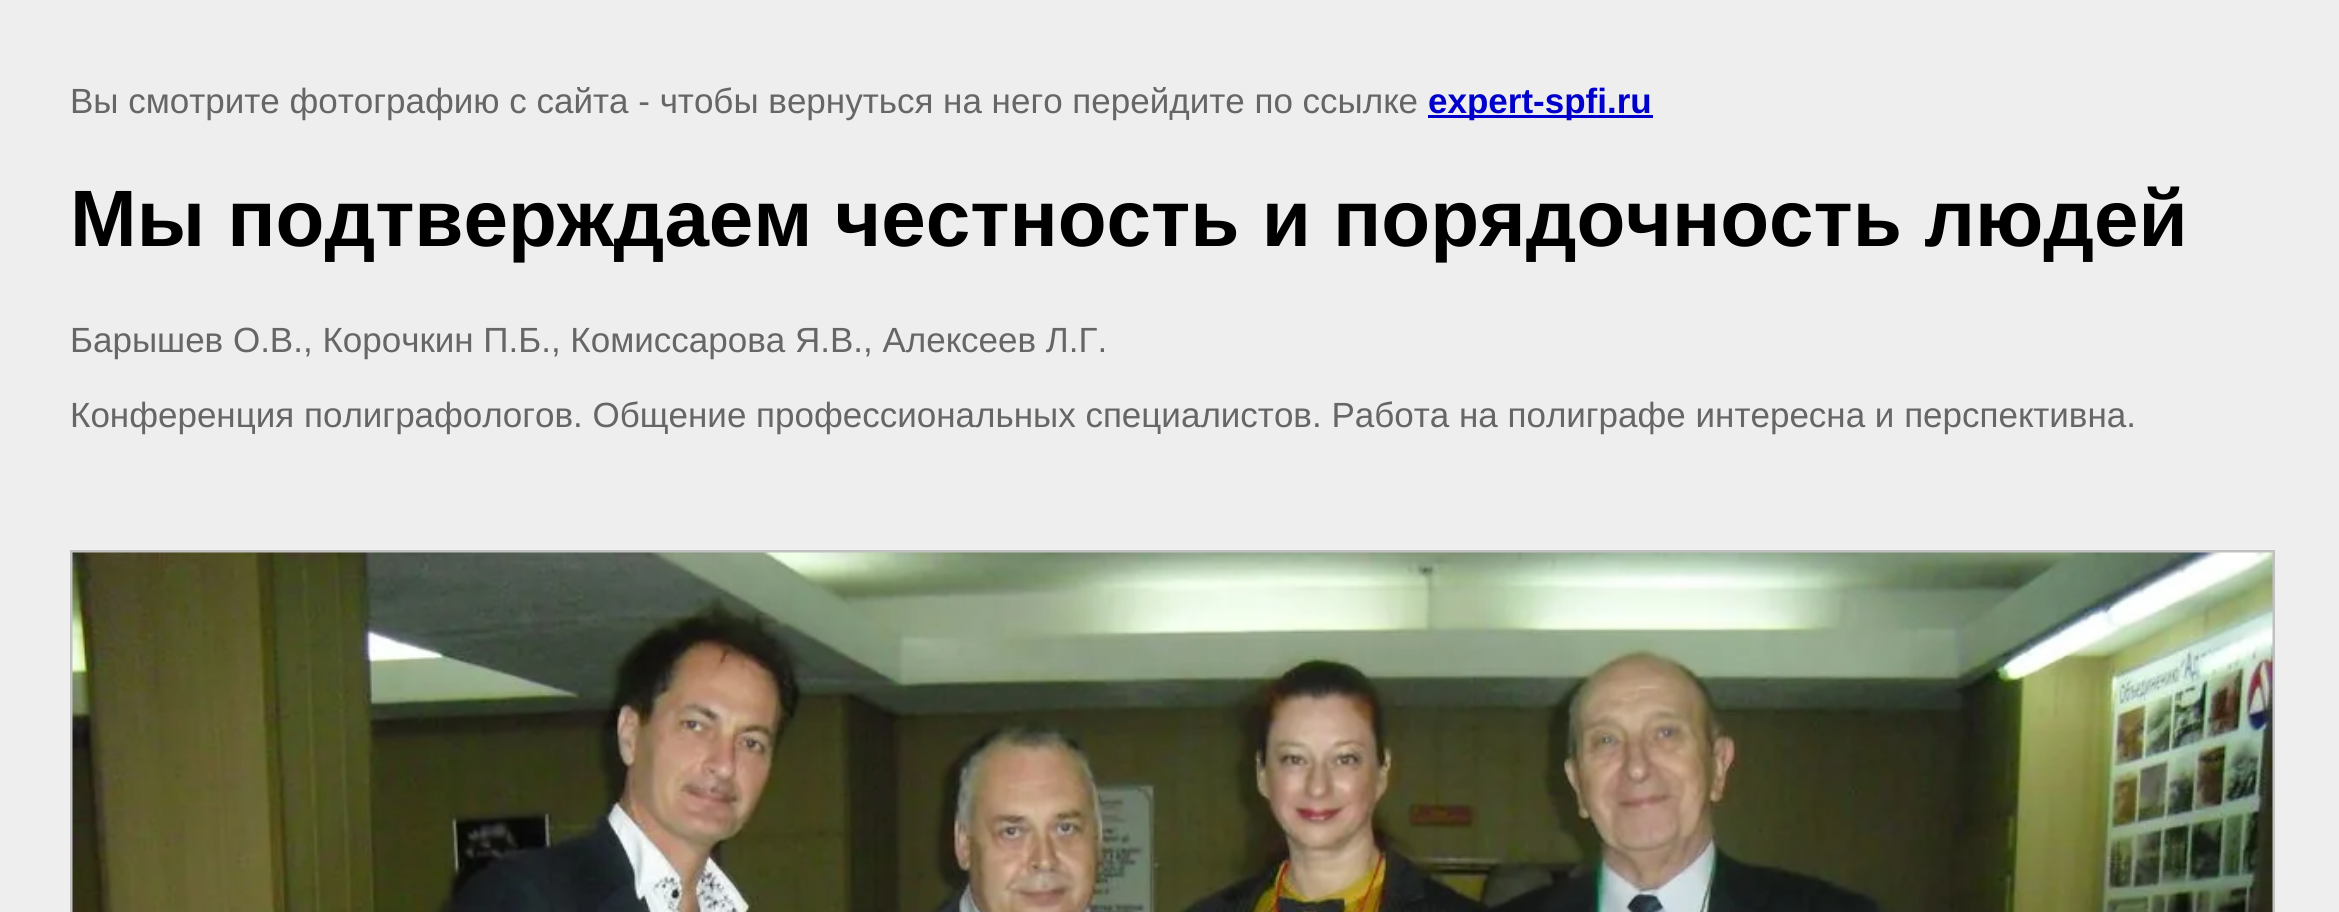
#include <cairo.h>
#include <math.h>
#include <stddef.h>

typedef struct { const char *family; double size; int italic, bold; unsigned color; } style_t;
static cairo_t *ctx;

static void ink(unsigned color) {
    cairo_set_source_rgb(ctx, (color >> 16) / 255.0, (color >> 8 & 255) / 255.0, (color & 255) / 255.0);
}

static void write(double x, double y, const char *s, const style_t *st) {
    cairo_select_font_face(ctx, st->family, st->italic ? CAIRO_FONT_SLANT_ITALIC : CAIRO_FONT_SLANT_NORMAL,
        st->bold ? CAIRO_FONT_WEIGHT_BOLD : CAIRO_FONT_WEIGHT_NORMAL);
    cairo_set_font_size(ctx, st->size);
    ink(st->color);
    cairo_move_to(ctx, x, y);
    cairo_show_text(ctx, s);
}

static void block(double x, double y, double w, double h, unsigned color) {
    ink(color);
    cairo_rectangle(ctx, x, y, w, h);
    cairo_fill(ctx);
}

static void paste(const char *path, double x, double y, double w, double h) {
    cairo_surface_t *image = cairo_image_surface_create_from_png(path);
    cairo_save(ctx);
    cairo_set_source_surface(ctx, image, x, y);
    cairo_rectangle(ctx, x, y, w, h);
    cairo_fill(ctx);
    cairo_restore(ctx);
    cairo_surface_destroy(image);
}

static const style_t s1 = {"Liberation Sans", 35, 0, 0, 0x666666};
static const style_t s2 = {"Liberation Sans", 35, 0, 1, 0x0000cc};
static const style_t s3 = {"Liberation Sans", 80, 0, 1, 0x000000};

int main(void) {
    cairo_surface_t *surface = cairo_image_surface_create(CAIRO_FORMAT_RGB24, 2339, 912);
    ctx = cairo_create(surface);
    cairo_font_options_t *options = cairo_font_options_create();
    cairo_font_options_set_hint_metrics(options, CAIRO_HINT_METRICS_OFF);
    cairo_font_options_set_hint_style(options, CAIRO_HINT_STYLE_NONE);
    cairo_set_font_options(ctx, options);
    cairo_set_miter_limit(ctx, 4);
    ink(0xeeeeee);
    cairo_paint(ctx);
    write(70, 113, "Вы смотрите фотографию с сайта - чтобы вернуться на него перейдите по ссылке", &s1);
    block(1428, 115, 225, 3, 0x0000cc);
    write(1428, 113, "expert-spfi.ru", &s2);
    write(70, 246, "Мы подтверждаем честность и порядочность людей", &s3);
    write(70, 352, "Барышев О.В., Корочкин П.Б., Комиссарова Я.В., Алексеев Л.Г.", &s1);
    write(70, 427, "Конференция полиграфологов. Общение профессиональных специалистов. Работа на полиграфе интересна и перспективна.", &s1);
    cairo_rectangle(ctx, 71.5, 551.5, 2202, 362);
    ink(0xc0c0c0);
    cairo_set_line_width(ctx, 3);
    cairo_stroke(ctx);
    paste("pic1.png", 72, 552, 2201, 360);
    cairo_surface_write_to_png(surface, "screenshot.png");
    cairo_font_options_destroy(options);
    cairo_destroy(ctx);
    cairo_surface_destroy(surface);
    return 0;
}
